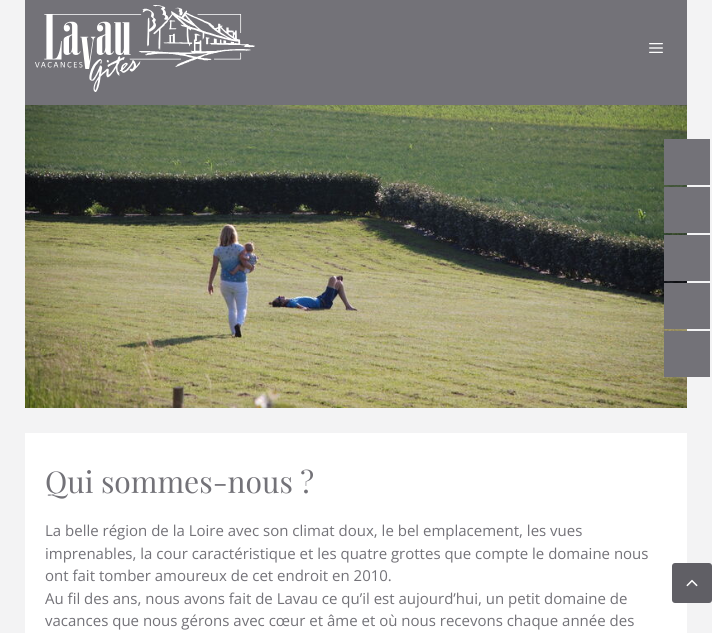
#include <cairo.h>
#include <math.h>
#include <stddef.h>

typedef struct { const char *family; double size; int italic, bold; unsigned color; } style_t;
static cairo_t *ctx;

static void ink(unsigned color) {
    cairo_set_source_rgb(ctx, (color >> 16) / 255.0, (color >> 8 & 255) / 255.0, (color & 255) / 255.0);
}

static void write(double x, double y, const char *s, const style_t *st) {
    cairo_select_font_face(ctx, st->family, st->italic ? CAIRO_FONT_SLANT_ITALIC : CAIRO_FONT_SLANT_NORMAL,
        st->bold ? CAIRO_FONT_WEIGHT_BOLD : CAIRO_FONT_WEIGHT_NORMAL);
    cairo_set_font_size(ctx, st->size);
    ink(st->color);
    cairo_move_to(ctx, x, y);
    cairo_show_text(ctx, s);
}

static void block(double x, double y, double w, double h, unsigned color) {
    ink(color);
    cairo_rectangle(ctx, x, y, w, h);
    cairo_fill(ctx);
}

static void round_path(double x, double y, double w, double h, double r) {
    cairo_new_sub_path(ctx);
    cairo_arc(ctx, x + w - r, y + h - r, r, 0, M_PI / 2);
    cairo_arc(ctx, x + r, y + h - r, r, M_PI / 2, M_PI);
    cairo_arc(ctx, x + r, y + r, r, M_PI, 1.5 * M_PI);
    cairo_arc(ctx, x + w - r, y + r, r, 1.5 * M_PI, 2 * M_PI);
    cairo_close_path(ctx);
}

static void paste(const char *path, double x, double y, double w, double h) {
    cairo_surface_t *image = cairo_image_surface_create_from_png(path);
    cairo_save(ctx);
    cairo_set_source_surface(ctx, image, x, y);
    cairo_rectangle(ctx, x, y, w, h);
    cairo_fill(ctx);
    cairo_restore(ctx);
    cairo_surface_destroy(image);
}

static const style_t s1 = {"Playfair Display", 30, 0, 0, 0x737278};
static const style_t s2 = {"Open Sans", 15, 0, 0, 0x737278};

int main(void) {
    cairo_surface_t *surface = cairo_image_surface_create(CAIRO_FORMAT_RGB24, 712, 633);
    ctx = cairo_create(surface);
    cairo_font_options_t *options = cairo_font_options_create();
    cairo_font_options_set_hint_metrics(options, CAIRO_HINT_METRICS_OFF);
    cairo_font_options_set_hint_style(options, CAIRO_HINT_STYLE_NONE);
    cairo_set_font_options(ctx, options);
    cairo_set_miter_limit(ctx, 4);
    ink(0xf3f3f4);
    cairo_paint(ctx);
    block(25, 0, 662, 105, 0x737278);
    paste("pic1.png", 35, 5, 220, 87);
    paste("pic2.png", 649, 43, 14, 10);
    paste("pic3.png", 25, 105, 662, 303);
    block(664, 139, 46, 46, 0x737278);
    block(664, 187, 46, 46, 0x737278);
    block(664, 235, 46, 46, 0x737278);
    block(664, 283, 46, 46, 0x737278);
    block(664, 331, 46, 46, 0x737278);
    block(25, 433, 662, 200, 0xffffff);
    write(45, 493, "Qui sommes-nous ?", &s1);
    write(45, 536, "La belle région de la Loire avec son climat doux, le bel emplacement, les vues", &s2);
    write(45, 559, "imprenables, la cour caractéristique et les quatre grottes que compte le domaine nous", &s2);
    write(45, 581, "ont fait tomber amoureux de cet endroit en 2010.", &s2);
    write(45, 604, "Au fil des ans, nous avons fait de Lavau ce qu’il est aujourd’hui, un petit domaine de", &s2);
    write(45, 626, "vacances que nous gérons avec cœur et âme et où nous recevons chaque année des", &s2);
    ink(0x605f65);
    round_path(672, 563, 40, 40, 3);
    cairo_fill(ctx);
    paste("pic4.png", 686, 579, 12, 8);
    cairo_surface_write_to_png(surface, "screenshot.png");
    cairo_font_options_destroy(options);
    cairo_destroy(ctx);
    cairo_surface_destroy(surface);
    return 0;
}
